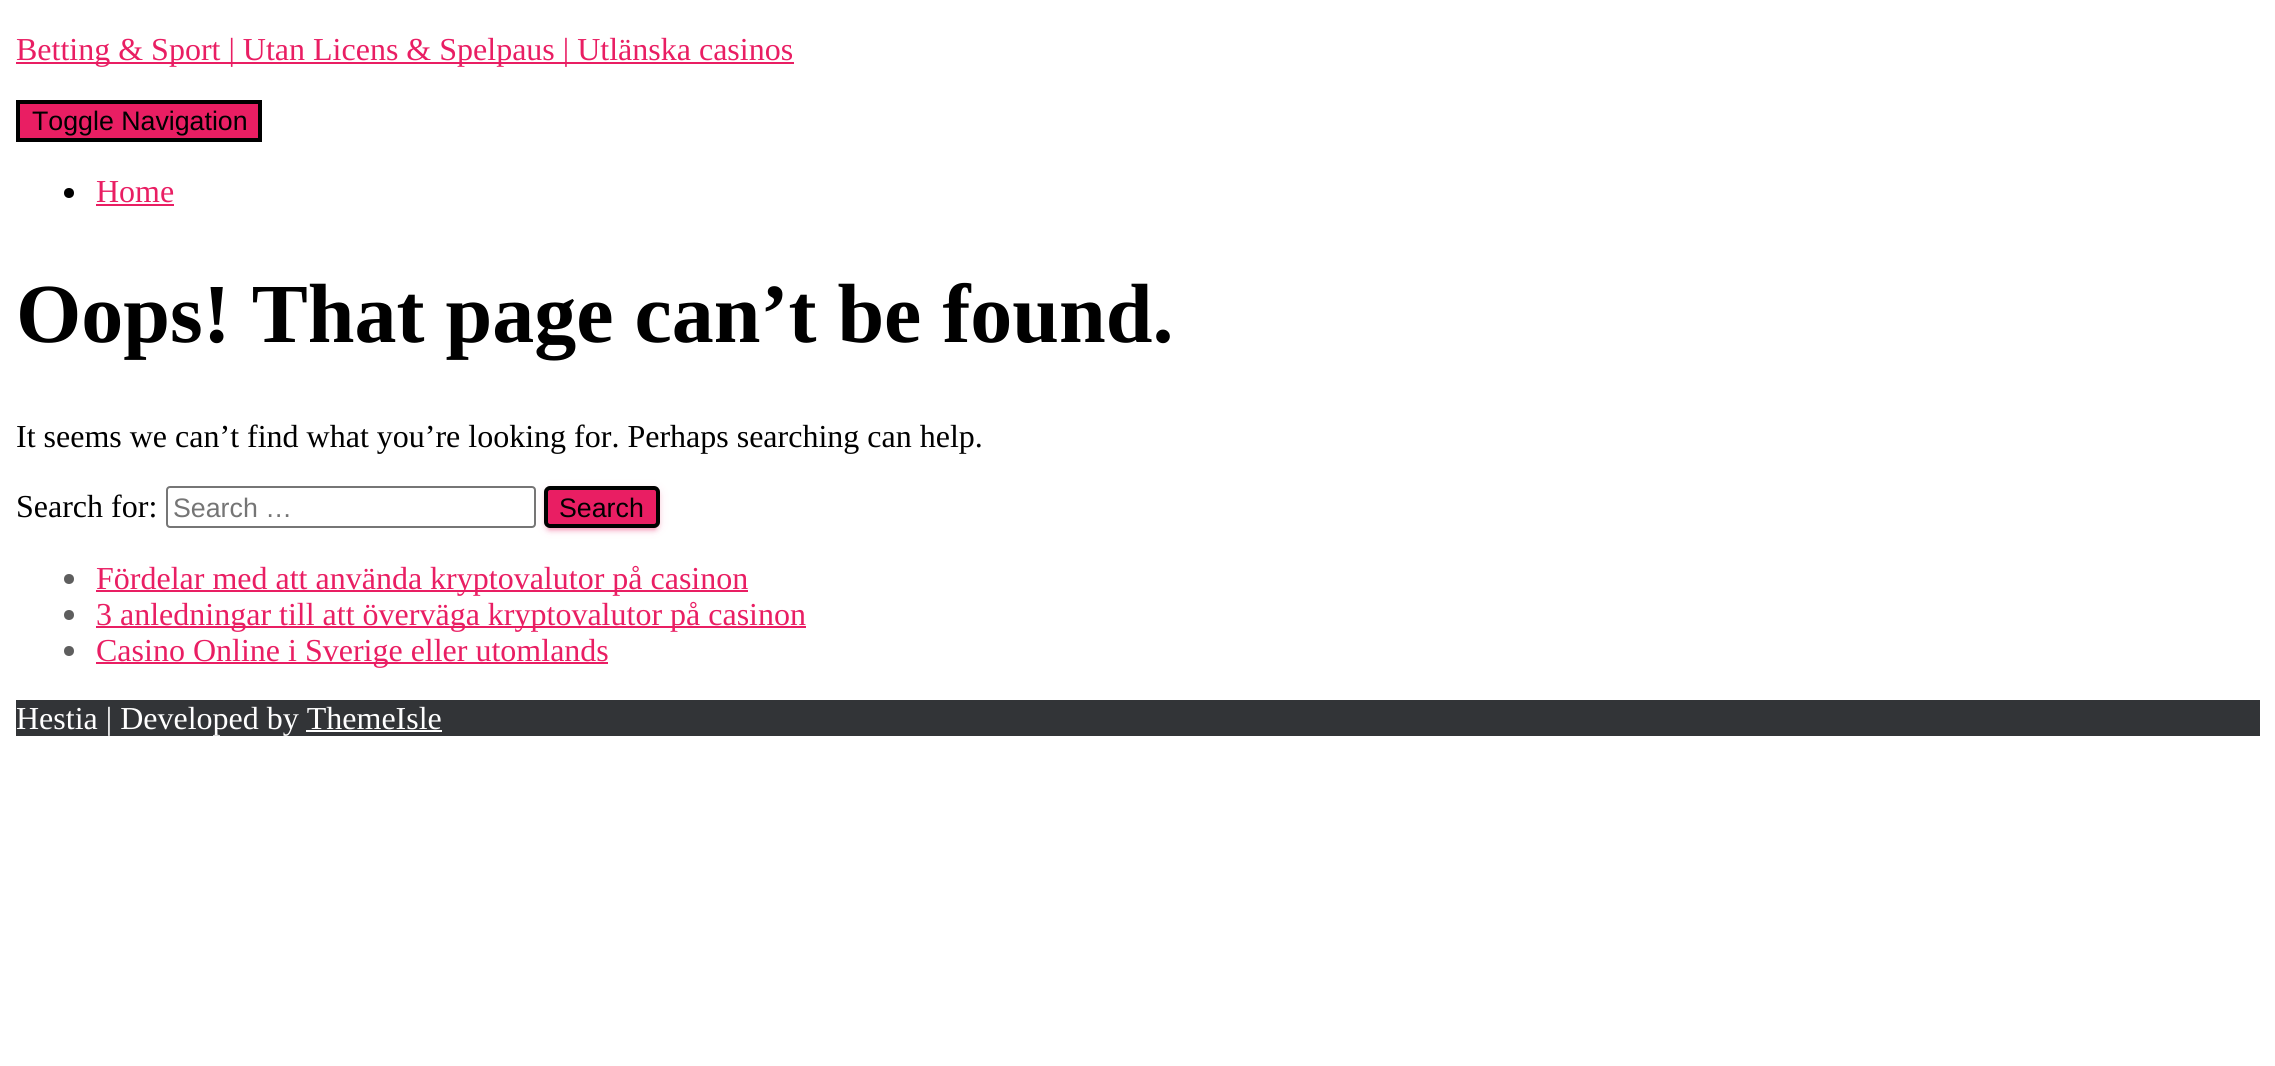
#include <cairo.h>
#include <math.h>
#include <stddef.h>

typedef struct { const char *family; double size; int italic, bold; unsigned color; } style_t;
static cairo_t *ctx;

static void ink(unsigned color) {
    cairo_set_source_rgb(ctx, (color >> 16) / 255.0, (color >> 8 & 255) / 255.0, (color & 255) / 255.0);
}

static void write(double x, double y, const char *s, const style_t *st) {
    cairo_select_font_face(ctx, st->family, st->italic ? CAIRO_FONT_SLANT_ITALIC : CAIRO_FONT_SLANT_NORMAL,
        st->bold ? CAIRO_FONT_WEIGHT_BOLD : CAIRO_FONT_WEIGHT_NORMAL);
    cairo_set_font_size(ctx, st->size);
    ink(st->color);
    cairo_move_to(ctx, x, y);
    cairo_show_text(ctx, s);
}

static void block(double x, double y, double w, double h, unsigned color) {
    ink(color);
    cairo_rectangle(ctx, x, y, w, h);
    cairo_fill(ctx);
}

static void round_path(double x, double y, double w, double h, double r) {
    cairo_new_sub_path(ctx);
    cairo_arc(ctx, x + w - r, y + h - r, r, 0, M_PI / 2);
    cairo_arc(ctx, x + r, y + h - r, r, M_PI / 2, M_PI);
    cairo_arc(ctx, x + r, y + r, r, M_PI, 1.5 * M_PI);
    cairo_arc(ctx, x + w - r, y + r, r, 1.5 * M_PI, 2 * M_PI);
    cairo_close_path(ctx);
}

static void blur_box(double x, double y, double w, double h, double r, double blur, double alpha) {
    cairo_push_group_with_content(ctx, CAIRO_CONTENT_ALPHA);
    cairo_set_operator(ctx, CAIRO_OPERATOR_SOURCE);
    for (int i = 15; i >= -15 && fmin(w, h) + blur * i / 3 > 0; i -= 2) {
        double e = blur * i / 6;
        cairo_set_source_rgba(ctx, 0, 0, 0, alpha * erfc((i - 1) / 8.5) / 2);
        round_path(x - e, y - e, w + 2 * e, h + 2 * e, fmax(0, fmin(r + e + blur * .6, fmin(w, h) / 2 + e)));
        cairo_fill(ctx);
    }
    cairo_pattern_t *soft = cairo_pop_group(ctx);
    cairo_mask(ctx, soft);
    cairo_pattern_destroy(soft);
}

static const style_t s1 = {"Liberation Serif", 32, 0, 0, 0xe91e63};
static const style_t s2 = {"Liberation Sans", 26.75, 0, 0, 0x000000};
static const style_t s3 = {"Liberation Serif", 84, 0, 1, 0x000000};
static const style_t s4 = {"Liberation Serif", 32, 0, 0, 0x000000};
static const style_t s5 = {"Liberation Sans", 26.75, 0, 0, 0x757575};
static const style_t s6 = {"Liberation Serif", 32, 0, 0, 0xffffff};

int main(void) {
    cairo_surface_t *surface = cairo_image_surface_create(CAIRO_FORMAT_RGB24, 2275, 1066);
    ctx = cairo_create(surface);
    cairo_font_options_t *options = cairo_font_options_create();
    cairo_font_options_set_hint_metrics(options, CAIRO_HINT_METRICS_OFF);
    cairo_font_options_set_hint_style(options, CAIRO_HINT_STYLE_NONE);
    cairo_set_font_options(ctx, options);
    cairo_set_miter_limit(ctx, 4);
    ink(0xffffff);
    cairo_paint(ctx);
    block(16, 62, 778, 2, 0xe91e63);
    write(16, 60, "Betting & Sport | Utan Licens & Spelpaus | Utlänska casinos", &s1);
    cairo_rectangle(ctx, 18, 102, 242, 38);
    cairo_fill_preserve(ctx);
    ink(0x000000);
    cairo_set_line_width(ctx, 4);
    cairo_stroke(ctx);
    write(32, 130, "Toggle Navigation", &s2);
    cairo_new_path(ctx);
    cairo_arc(ctx, 69, 193, 5, 0, 2 * M_PI);
    cairo_fill(ctx);
    write(96, 202, "Home", &s1);
    block(96, 204, 78, 2, 0xe91e63);
    write(16, 342, "Oops! That page can’t be found.", &s3);
    write(16, 447, "It seems we can’t find what you’re looking for. Perhaps searching can help.", &s4);
    write(16, 517, "Search for:", &s4);
    round_path(167, 487, 368, 40, 3);
    ink(0x767676);
    cairo_set_line_width(ctx, 2);
    cairo_stroke(ctx);
    write(173, 517, "Search …", &s5);
    ink(0xe91e63);
    blur_box(544, 488, 116, 42, 6, 5, 0.12);
    blur_box(548, 496, 108, 34, 2, 1, 0.2);
    blur_box(544, 490, 116, 42, 6, 2, 0.14);
    ink(0xe91e63);
    round_path(546, 488, 112, 38, 4);
    cairo_fill_preserve(ctx);
    ink(0x000000);
    cairo_set_line_width(ctx, 4);
    cairo_stroke(ctx);
    write(559, 517, "Search", &s2);
    ink(0x5e5e5e);
    cairo_new_path(ctx);
    cairo_arc(ctx, 69, 579, 5, 0, 2 * M_PI);
    cairo_fill(ctx);
    block(96, 590, 652, 2, 0xe91e63);
    write(96, 589, "Fördelar med att använda kryptovalutor på casinon", &s1);
    ink(0x5e5e5e);
    cairo_new_path(ctx);
    cairo_arc(ctx, 69, 615, 5, 0, 2 * M_PI);
    cairo_fill(ctx);
    block(96, 626, 710, 2, 0xe91e63);
    write(96, 625, "3 anledningar till att överväga kryptovalutor på casinon", &s1);
    ink(0x5e5e5e);
    cairo_new_path(ctx);
    cairo_arc(ctx, 69, 651, 5, 0, 2 * M_PI);
    cairo_fill(ctx);
    block(96, 662, 512, 2, 0xe91e63);
    write(96, 661, "Casino Online i Sverige eller utomlands", &s1);
    block(16, 700, 2244, 36, 0x323437);
    write(16, 729, "Hestia | Developed by ThemeIsle", &s6);
    block(306, 730, 136, 2, 0xffffff);
    cairo_surface_write_to_png(surface, "screenshot.png");
    cairo_font_options_destroy(options);
    cairo_destroy(ctx);
    cairo_surface_destroy(surface);
    return 0;
}
